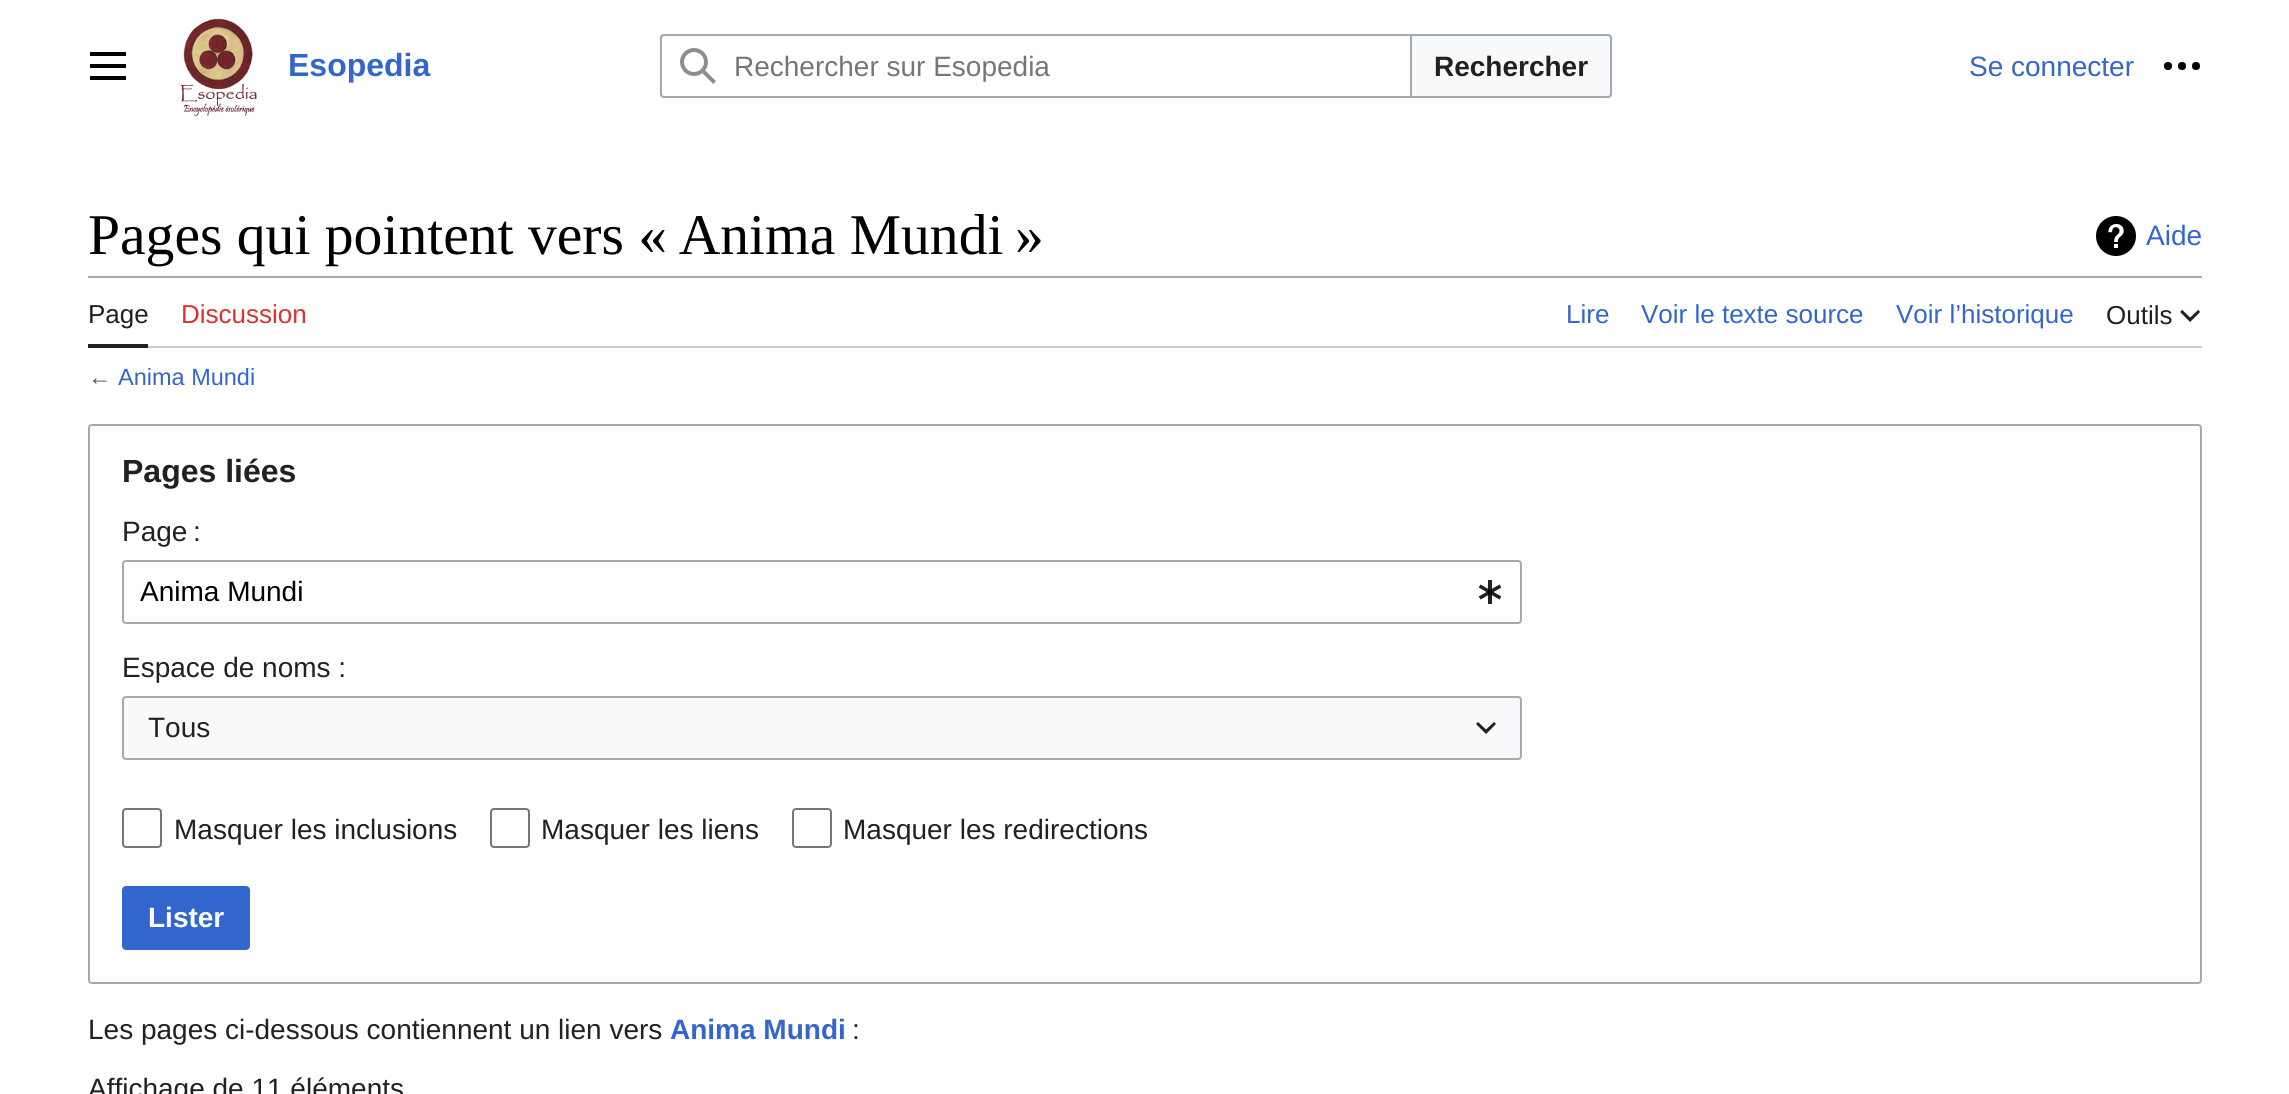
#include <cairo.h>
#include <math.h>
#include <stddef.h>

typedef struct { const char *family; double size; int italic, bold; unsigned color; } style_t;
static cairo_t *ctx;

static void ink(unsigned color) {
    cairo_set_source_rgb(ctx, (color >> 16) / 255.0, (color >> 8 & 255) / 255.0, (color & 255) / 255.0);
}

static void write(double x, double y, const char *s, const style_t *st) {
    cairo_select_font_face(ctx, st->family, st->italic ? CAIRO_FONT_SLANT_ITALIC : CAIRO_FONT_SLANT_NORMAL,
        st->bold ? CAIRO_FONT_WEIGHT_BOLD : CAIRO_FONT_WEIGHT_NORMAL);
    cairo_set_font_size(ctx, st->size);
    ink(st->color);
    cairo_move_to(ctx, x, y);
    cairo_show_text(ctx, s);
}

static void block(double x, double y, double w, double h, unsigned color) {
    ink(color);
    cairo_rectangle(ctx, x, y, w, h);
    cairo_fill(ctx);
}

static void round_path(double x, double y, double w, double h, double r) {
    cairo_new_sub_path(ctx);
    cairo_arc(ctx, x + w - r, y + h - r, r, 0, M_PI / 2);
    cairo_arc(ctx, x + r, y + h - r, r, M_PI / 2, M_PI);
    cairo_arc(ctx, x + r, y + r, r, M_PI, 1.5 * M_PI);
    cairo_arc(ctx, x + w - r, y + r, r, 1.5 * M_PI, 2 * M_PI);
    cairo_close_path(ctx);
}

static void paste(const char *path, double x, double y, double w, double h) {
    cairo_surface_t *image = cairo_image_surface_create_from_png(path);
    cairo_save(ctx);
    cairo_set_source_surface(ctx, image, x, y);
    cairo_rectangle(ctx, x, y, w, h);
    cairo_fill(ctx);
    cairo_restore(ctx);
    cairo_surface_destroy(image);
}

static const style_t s1 = {"Liberation Sans", 32, 0, 1, 0x3366cc};
static const style_t s2 = {"Liberation Sans", 28, 0, 0, 0x72777d};
static const style_t s3 = {"Liberation Sans", 28, 0, 1, 0x202122};
static const style_t s4 = {"Liberation Sans", 28, 0, 0, 0x3366cc};
static const style_t s5 = {"Liberation Serif", 57.6, 0, 0, 0x000000};
static const style_t s6 = {"Liberation Sans", 26, 0, 0, 0x202122};
static const style_t s7 = {"Liberation Sans", 26, 0, 0, 0xd73333};
static const style_t s8 = {"Liberation Sans", 26, 0, 0, 0x3366cc};
static const style_t s9 = {"Liberation Sans", 23.5, 0, 0, 0x54595d};
static const style_t s10 = {"Liberation Sans", 23.5, 0, 0, 0x3366cc};
static const style_t s11 = {"Liberation Sans", 32, 0, 1, 0x202122};
static const style_t s12 = {"Liberation Sans", 28, 0, 0, 0x202122};
static const style_t s13 = {"Liberation Sans", 28, 0, 0, 0x000000};
static const style_t s14 = {"Liberation Sans", 28, 0, 1, 0xffffff};
static const style_t s15 = {"Liberation Sans", 28, 0, 1, 0x3366cc};

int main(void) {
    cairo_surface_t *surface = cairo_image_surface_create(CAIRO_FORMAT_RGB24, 2289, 1094);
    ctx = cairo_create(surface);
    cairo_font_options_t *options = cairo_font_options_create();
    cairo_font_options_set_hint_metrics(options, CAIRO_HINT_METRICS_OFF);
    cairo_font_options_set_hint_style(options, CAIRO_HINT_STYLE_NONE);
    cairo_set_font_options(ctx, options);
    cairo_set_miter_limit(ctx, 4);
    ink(0xffffff);
    cairo_paint(ctx);
    paste("pic1.png", 90, 52, 36, 28);
    paste("pic2.png", 180, 18, 77, 98);
    write(288, 76, "Esopedia", &s1);
    round_path(661, 35, 950, 62, 3);
    ink(0xa2a9b1);
    cairo_stroke(ctx);
    ink(0xf8f9fa);
    cairo_new_path(ctx);
    cairo_move_to(ctx, 1411, 35);
    cairo_line_to(ctx, 1608, 35);
    cairo_curve_to(ctx, 1609.5, 35, 1611, 36.5, 1611, 38);
    cairo_line_to(ctx, 1611, 94);
    cairo_curve_to(ctx, 1611, 95.5, 1609.5, 97, 1608, 97);
    cairo_line_to(ctx, 1411, 97);
    cairo_close_path(ctx);
    cairo_fill_preserve(ctx);
    ink(0xa2a9b1);
    cairo_stroke(ctx);
    ink(0xffffff);
    cairo_new_path(ctx);
    cairo_move_to(ctx, 664, 35);
    cairo_line_to(ctx, 1411, 35);
    cairo_line_to(ctx, 1411, 97);
    cairo_line_to(ctx, 664, 97);
    cairo_curve_to(ctx, 662.5, 97, 661, 95.5, 661, 94);
    cairo_line_to(ctx, 661, 38);
    cairo_curve_to(ctx, 661, 36.5, 662.5, 35, 664, 35);
    cairo_close_path(ctx);
    cairo_fill_preserve(ctx);
    ink(0xa2a9b1);
    cairo_stroke(ctx);
    paste("pic3.png", 680, 48, 36, 36);
    write(734, 76, "Rechercher sur Esopedia", &s2);
    write(1434, 76, "Rechercher", &s3);
    write(1969, 76, "Se connecter", &s4);
    paste("pic4.png", 2164, 62, 36, 8);
    block(88, 276, 2114, 2, 0xa2a9b1);
    write(88, 254, "Pages qui pointent vers « Anima Mundi »", &s5);
    paste("pic5.png", 2096, 216, 40, 40);
    write(2146, 245, "Aide", &s4);
    block(148, 346, 2054, 2, 0xc8ccd1);
    block(88, 344, 60, 4, 0x202122);
    write(88, 323, "Page", &s6);
    write(181, 323, "Discussion", &s7);
    write(1566, 323, "Lire", &s8);
    write(1641, 323, "Voir le texte source", &s8);
    write(1896, 323, "Voir l’historique", &s8);
    write(2106, 324, "Outils", &s6);
    paste("pic6.png", 2180, 310, 20, 12);
    write(88, 385, "←", &s9);
    write(118, 385, "Anima Mundi", &s10);
    round_path(89, 425, 2112, 558, 3);
    ink(0xa2a9b1);
    cairo_stroke(ctx);
    write(122, 482, "Pages liées", &s11);
    write(122, 541, "Page :", &s12);
    round_path(123, 561, 1398, 62, 3);
    ink(0xa2a9b1);
    cairo_stroke(ctx);
    write(140, 601, "Anima Mundi", &s13);
    paste("pic7.png", 1478, 580, 24, 24);
    write(122, 677, "Espace de noms :", &s12);
    block(122, 696, 1400, 64, 0xf8f9fa);
    round_path(123, 697, 1398, 62, 3);
    ink(0xa2a9b1);
    cairo_stroke(ctx);
    write(148, 737, "Tous", &s12);
    ink(0x202021);
    cairo_new_path(ctx);
    cairo_move_to(ctx, 1494, 722);
    cairo_line_to(ctx, 1486, 729.5);
    cairo_line_to(ctx, 1478, 722);
    cairo_line_to(ctx, 1476, 724);
    cairo_line_to(ctx, 1486, 734);
    cairo_line_to(ctx, 1496, 724);
    cairo_close_path(ctx);
    cairo_fill(ctx);
    round_path(123, 809, 38, 38, 3);
    ink(0x72777d);
    cairo_stroke(ctx);
    write(174, 839, "Masquer les inclusions", &s12);
    round_path(491, 809, 38, 38, 3);
    ink(0x72777d);
    cairo_stroke(ctx);
    write(541, 839, "Masquer les liens", &s12);
    round_path(793, 809, 38, 38, 3);
    ink(0x72777d);
    cairo_stroke(ctx);
    write(843, 839, "Masquer les redirections", &s12);
    ink(0x3366cc);
    round_path(123, 887, 126, 62, 3);
    cairo_fill_preserve(ctx);
    cairo_stroke(ctx);
    write(148, 927, "Lister", &s14);
    write(88, 1039, "Les pages ci-dessous contiennent un lien vers", &s12);
    write(670, 1039, "Anima Mundi", &s15);
    write(852, 1039, ":", &s12);
    write(88, 1098, "Affichage de 11 éléments", &s12);
    cairo_surface_write_to_png(surface, "screenshot.png");
    cairo_font_options_destroy(options);
    cairo_destroy(ctx);
    cairo_surface_destroy(surface);
    return 0;
}
